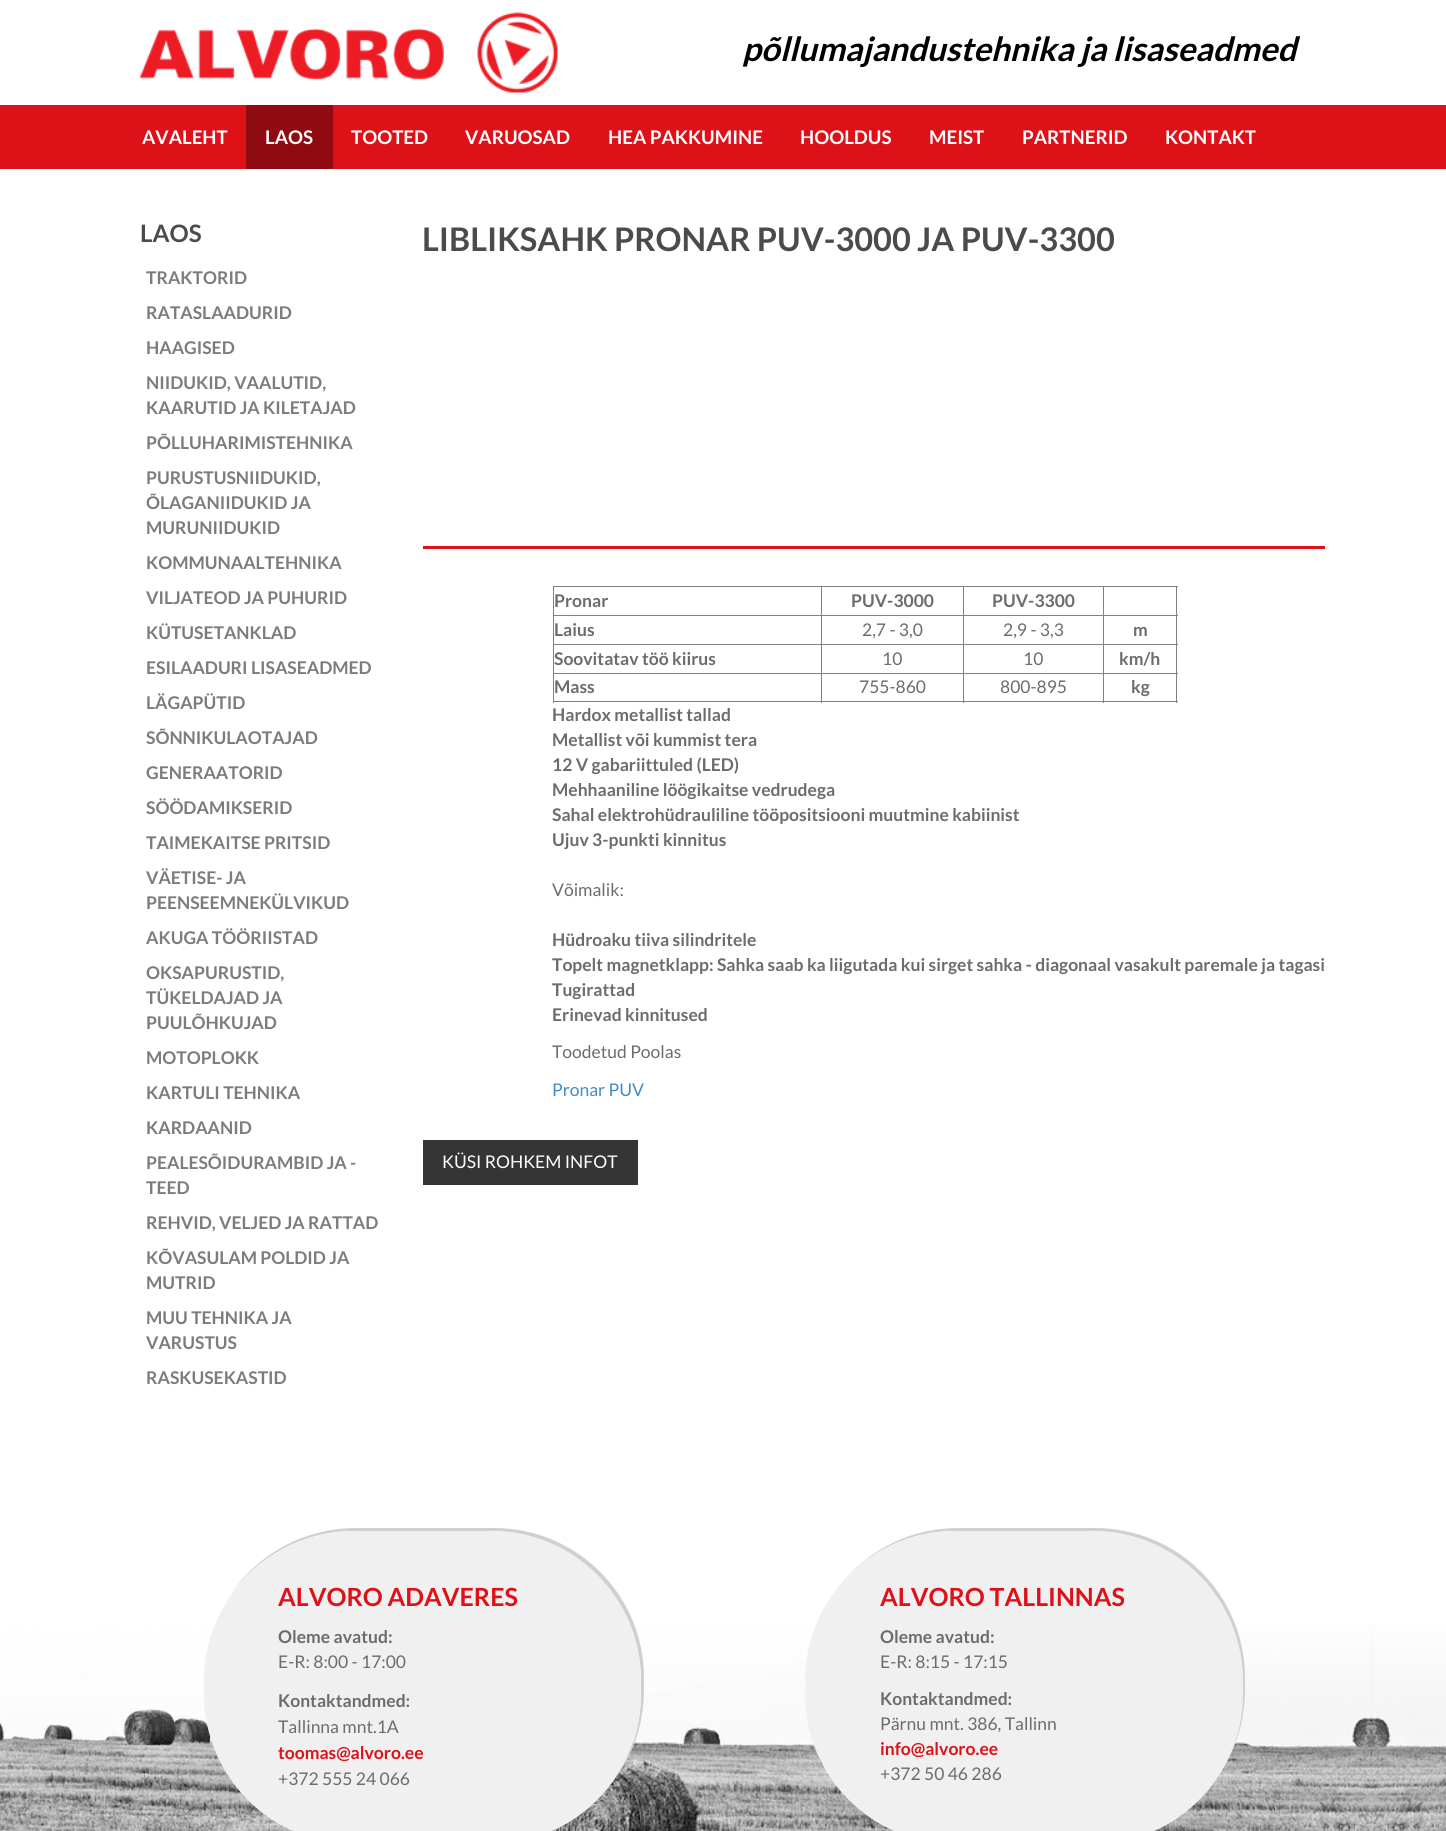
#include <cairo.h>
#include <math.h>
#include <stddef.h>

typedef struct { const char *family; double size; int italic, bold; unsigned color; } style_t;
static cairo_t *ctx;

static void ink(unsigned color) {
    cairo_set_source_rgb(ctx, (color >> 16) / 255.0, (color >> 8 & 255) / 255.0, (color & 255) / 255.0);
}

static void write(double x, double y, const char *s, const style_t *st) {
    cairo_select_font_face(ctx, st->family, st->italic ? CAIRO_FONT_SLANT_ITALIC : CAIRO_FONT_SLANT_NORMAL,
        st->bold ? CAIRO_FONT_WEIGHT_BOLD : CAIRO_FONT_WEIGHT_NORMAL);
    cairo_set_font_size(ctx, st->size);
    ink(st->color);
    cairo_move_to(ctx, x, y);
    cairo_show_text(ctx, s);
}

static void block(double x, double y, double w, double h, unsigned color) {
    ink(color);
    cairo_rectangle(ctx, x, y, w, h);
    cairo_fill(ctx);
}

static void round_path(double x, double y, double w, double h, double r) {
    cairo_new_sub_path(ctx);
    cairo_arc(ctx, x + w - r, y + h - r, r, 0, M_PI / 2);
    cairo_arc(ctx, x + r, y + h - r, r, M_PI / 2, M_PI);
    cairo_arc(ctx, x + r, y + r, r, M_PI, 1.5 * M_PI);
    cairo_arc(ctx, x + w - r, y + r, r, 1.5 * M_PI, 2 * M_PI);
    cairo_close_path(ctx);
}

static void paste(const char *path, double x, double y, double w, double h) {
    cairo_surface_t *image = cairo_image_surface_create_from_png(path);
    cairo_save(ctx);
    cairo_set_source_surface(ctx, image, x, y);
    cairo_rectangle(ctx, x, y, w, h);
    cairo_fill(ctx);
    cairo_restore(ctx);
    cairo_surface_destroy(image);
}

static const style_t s1 = {"Lato", 33.3, 1, 1, 0x010101};
static const style_t s2 = {"Lato", 18.75, 0, 1, 0xffffff};
static const style_t s3 = {"Lato", 24, 0, 1, 0x4b4b4b};
static const style_t s4 = {"Lato", 17.5, 0, 1, 0x7c7c7c};
static const style_t s5 = {"Lato", 32.5, 0, 1, 0x4b4b4b};
static const style_t s6 = {"Lato", 17.5, 0, 1, 0x6c6c6c};
static const style_t s7 = {"Lato", 17.5, 0, 0, 0x6c6c6c};
static const style_t s8 = {"Lato", 17.5, 0, 0, 0x428bca};
static const style_t s9 = {"Lato", 17.5, 0, 0, 0xffffff};
static const style_t s10 = {"Lato", 25, 0, 1, 0xde1119};
static const style_t s11 = {"Lato", 17.5, 0, 1, 0xde1119};

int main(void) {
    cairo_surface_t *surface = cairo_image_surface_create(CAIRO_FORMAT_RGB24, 1446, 1831);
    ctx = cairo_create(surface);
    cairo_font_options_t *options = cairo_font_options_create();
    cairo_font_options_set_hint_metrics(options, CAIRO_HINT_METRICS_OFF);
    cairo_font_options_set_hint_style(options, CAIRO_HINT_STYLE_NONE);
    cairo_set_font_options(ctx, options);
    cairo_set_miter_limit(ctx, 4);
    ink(0xffffff);
    cairo_paint(ctx);
    paste("pic1.png", 140, 12, 418, 81);
    write(742, 61, "põllumajandustehnika ja lisaseadmed", &s1);
    block(0, 105, 1446, 64, 0xde1119);
    write(142, 144, "AVALEHT", &s2);
    block(246, 105, 87, 64, 0x900b11);
    write(265, 144, "LAOS", &s2);
    write(351, 144, "TOOTED", &s2);
    write(465, 144, "VARUOSAD", &s2);
    write(608, 144, "HEA PAKKUMINE", &s2);
    write(800, 144, "HOOLDUS", &s2);
    write(929, 144, "MEIST", &s2);
    write(1022, 144, "PARTNERID", &s2);
    write(1165, 144, "KONTAKT", &s2);
    write(140, 242, "LAOS", &s3);
    write(146, 284, "TRAKTORID", &s4);
    write(146, 319, "RATASLAADURID", &s4);
    write(146, 354, "HAAGISED", &s4);
    write(146, 389, "NIIDUKID, VAALUTID,", &s4);
    write(146, 414, "KAARUTID JA KILETAJAD", &s4);
    write(146, 449, "PÕLLUHARIMISTEHNIKA", &s4);
    write(146, 484, "PURUSTUSNIIDUKID,", &s4);
    write(146, 509, "ÕLAGANIIDUKID JA", &s4);
    write(146, 534, "MURUNIIDUKID", &s4);
    write(146, 569, "KOMMUNAALTEHNIKA", &s4);
    write(146, 604, "VILJATEOD JA PUHURID", &s4);
    write(146, 639, "KÜTUSETANKLAD", &s4);
    write(146, 674, "ESILAADURI LISASEADMED", &s4);
    write(146, 709, "LÄGAPÜTID", &s4);
    write(146, 744, "SÕNNIKULAOTAJAD", &s4);
    write(146, 779, "GENERAATORID", &s4);
    write(146, 814, "SÖÖDAMIKSERID", &s4);
    write(146, 849, "TAIMEKAITSE PRITSID", &s4);
    write(146, 884, "VÄETISE- JA", &s4);
    write(146, 909, "PEENSEEMNEKÜLVIKUD", &s4);
    write(146, 944, "AKUGA TÖÖRIISTAD", &s4);
    write(146, 979, "OKSAPURUSTID,", &s4);
    write(146, 1004, "TÜKELDAJAD JA", &s4);
    write(146, 1029, "PUULÕHKUJAD", &s4);
    write(146, 1064, "MOTOPLOKK", &s4);
    write(146, 1099, "KARTULI TEHNIKA", &s4);
    write(146, 1134, "KARDAANID", &s4);
    write(146, 1169, "PEALESÕIDURAMBID JA -", &s4);
    write(146, 1194, "TEED", &s4);
    write(146, 1229, "REHVID, VELJED JA RATTAD", &s4);
    write(146, 1264, "KÕVASULAM POLDID JA", &s4);
    write(146, 1289, "MUTRID", &s4);
    write(146, 1324, "MUU TEHNIKA JA", &s4);
    write(146, 1349, "VARUSTUS", &s4);
    write(146, 1384, "RASKUSEKASTID", &s4);
    write(422, 251, "LIBLIKSAHK PRONAR PUV-3000 JA PUV-3300", &s5);
    block(423, 546, 902, 3, 0xde1119);
    block(553, 586, 625, 1, 0x808080);
    block(1176, 586, 1, 117, 0x808080);
    block(553, 701, 625, 1, 0x808080);
    block(553, 586, 1, 117, 0x808080);
    write(554, 607, "Pronar", &s6);
    block(1103, 615, 75, 1, 0x808080);
    block(1103, 644, 75, 1, 0x808080);
    block(1103, 673, 75, 1, 0x808080);
    block(1103, 673, 1, 30, 0x808080);
    block(963, 673, 141, 1, 0x808080);
    block(1103, 644, 1, 30, 0x808080);
    block(963, 644, 141, 1, 0x808080);
    block(1103, 615, 1, 30, 0x808080);
    block(963, 615, 141, 1, 0x808080);
    block(963, 673, 1, 30, 0x808080);
    block(821, 673, 143, 1, 0x808080);
    block(963, 644, 1, 30, 0x808080);
    block(821, 644, 143, 1, 0x808080);
    block(963, 615, 1, 30, 0x808080);
    block(821, 615, 143, 1, 0x808080);
    block(821, 673, 1, 30, 0x808080);
    block(553, 673, 270, 1, 0x808080);
    block(821, 644, 1, 30, 0x808080);
    block(553, 644, 270, 1, 0x808080);
    block(821, 615, 1, 30, 0x808080);
    block(553, 615, 270, 1, 0x808080);
    block(821, 586, 1, 30, 0x808080);
    write(851, 607, "PUV-3000", &s6);
    block(963, 586, 1, 30, 0x808080);
    write(992, 607, "PUV-3300", &s6);
    block(1103, 586, 1, 30, 0x808080);
    write(554, 636, "Laius", &s6);
    write(862, 636, "2,7 - 3,0", &s7);
    write(1003, 636, "2,9 - 3,3", &s7);
    write(1133, 636, "m", &s6);
    write(554, 665, "Soovitatav töö kiirus", &s6);
    write(882, 665, "10", &s7);
    write(1023, 665, "10", &s7);
    write(1119, 665, "km/h", &s6);
    write(554, 693, "Mass", &s6);
    write(859, 693, "755-860", &s7);
    write(1000, 693, "800-895", &s7);
    write(1131, 693, "kg", &s6);
    write(552, 721, "Hardox metallist tallad", &s6);
    write(552, 746, "Metallist või kummist tera", &s6);
    write(552, 771, "12 V gabariittuled (LED)", &s6);
    write(552, 796, "Mehhaaniline löögikaitse vedrudega", &s6);
    write(552, 821, "Sahal elektrohüdrauliline tööpositsiooni muutmine kabiinist", &s6);
    write(552, 846, "Ujuv 3-punkti kinnitus", &s6);
    write(552, 896, "Võimalik:", &s7);
    write(552, 946, "Hüdroaku tiiva silindritele", &s6);
    write(552, 971, "Topelt magnetklapp: Sahka saab ka liigutada kui sirget sahka - diagonaal vasakult paremale ja tagasi", &s6);
    write(552, 996, "Tugirattad", &s6);
    write(552, 1021, "Erinevad kinnitused", &s6);
    write(552, 1058, "Toodetud Poolas", &s7);
    write(552, 1096, "Pronar PUV", &s8);
    block(423, 1140, 215, 45, 0x353535);
    write(442, 1168, "KÜSI ROHKEM INFOT", &s9);
    paste("pic2.png", 0, 1625, 1446, 206);
    ink(0xd0d0d0);
    cairo_new_path(ctx);
    cairo_move_to(ctx, 356, 1528);
    cairo_curve_to(ctx, 304, 1528, 258, 1554, 231, 1594);
    cairo_curve_to(ctx, 259, 1556, 303, 1531, 354, 1531);
    cairo_line_to(ctx, 491, 1531);
    cairo_curve_to(ctx, 574, 1531, 641, 1598, 641, 1681);
    cairo_line_to(ctx, 641, 1694);
    cairo_curve_to(ctx, 641, 1726, 631, 1756, 614, 1780);
    cairo_curve_to(ctx, 633, 1755, 644, 1724, 644, 1690);
    cairo_line_to(ctx, 644, 1678);
    cairo_curve_to(ctx, 644, 1595, 577, 1528, 494, 1528);
    cairo_close_path(ctx);
    cairo_fill(ctx);
    ink(0xf0f0f0);
    round_path(204, 1531, 437, 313, 150);
    cairo_fill(ctx);
    write(278, 1606, "ALVORO ADAVERES", &s10);
    write(278, 1643, "Oleme avatud:", &s6);
    write(278, 1668, "E-R: 8:00 - 17:00", &s7);
    write(278, 1707, "Kontaktandmed:", &s6);
    write(278, 1733, "Tallinna mnt.1A", &s7);
    write(278, 1759, "toomas@alvoro.ee", &s11);
    write(278, 1785, "+372 555 24 066", &s7);
    ink(0xd0d0d0);
    cairo_new_path(ctx);
    cairo_move_to(ctx, 958, 1528);
    cairo_curve_to(ctx, 914, 1528, 874, 1547, 846, 1578);
    cairo_curve_to(ctx, 874, 1549, 912, 1531, 955, 1531);
    cairo_line_to(ctx, 1092, 1531);
    cairo_curve_to(ctx, 1175, 1531, 1242, 1598, 1242, 1681);
    cairo_line_to(ctx, 1242, 1694);
    cairo_curve_to(ctx, 1242, 1724, 1234, 1752, 1219, 1775);
    cairo_curve_to(ctx, 1235, 1751, 1245, 1722, 1245, 1690);
    cairo_line_to(ctx, 1245, 1678);
    cairo_curve_to(ctx, 1245, 1595, 1178, 1528, 1095, 1528);
    cairo_close_path(ctx);
    cairo_fill(ctx);
    ink(0xf0f0f0);
    round_path(805, 1531, 438, 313, 150);
    cairo_fill(ctx);
    write(880, 1606, "ALVORO TALLINNAS", &s10);
    write(880, 1643, "Oleme avatud:", &s6);
    write(880, 1668, "E-R: 8:15 - 17:15", &s7);
    write(880, 1705, "Kontaktandmed:", &s6);
    write(880, 1730, "Pärnu mnt. 386, Tallinn", &s7);
    write(880, 1755, "info@alvoro.ee", &s11);
    write(880, 1780, "+372 50 46 286", &s7);
    cairo_surface_write_to_png(surface, "screenshot.png");
    cairo_font_options_destroy(options);
    cairo_destroy(ctx);
    cairo_surface_destroy(surface);
    return 0;
}
